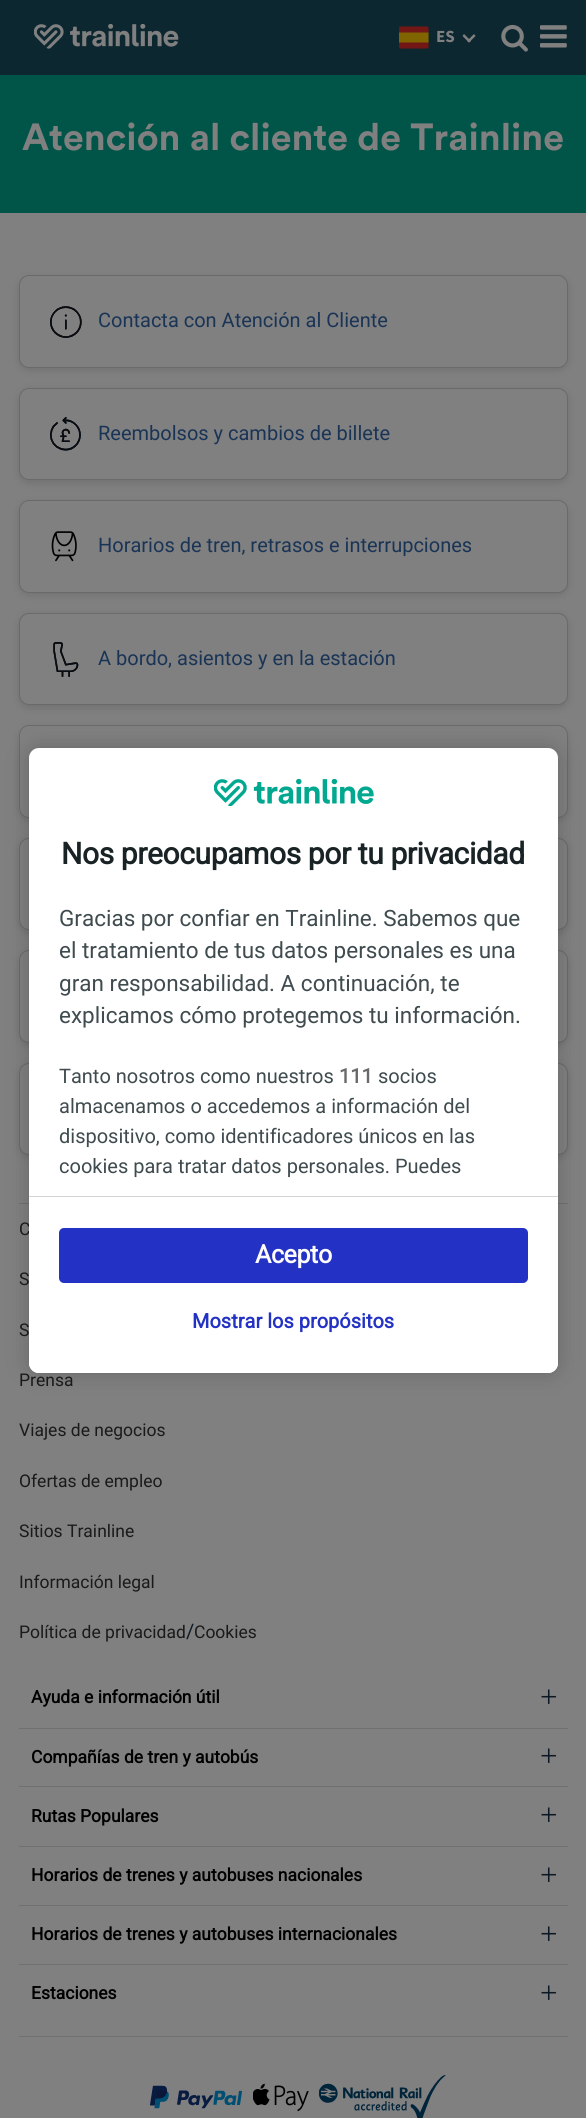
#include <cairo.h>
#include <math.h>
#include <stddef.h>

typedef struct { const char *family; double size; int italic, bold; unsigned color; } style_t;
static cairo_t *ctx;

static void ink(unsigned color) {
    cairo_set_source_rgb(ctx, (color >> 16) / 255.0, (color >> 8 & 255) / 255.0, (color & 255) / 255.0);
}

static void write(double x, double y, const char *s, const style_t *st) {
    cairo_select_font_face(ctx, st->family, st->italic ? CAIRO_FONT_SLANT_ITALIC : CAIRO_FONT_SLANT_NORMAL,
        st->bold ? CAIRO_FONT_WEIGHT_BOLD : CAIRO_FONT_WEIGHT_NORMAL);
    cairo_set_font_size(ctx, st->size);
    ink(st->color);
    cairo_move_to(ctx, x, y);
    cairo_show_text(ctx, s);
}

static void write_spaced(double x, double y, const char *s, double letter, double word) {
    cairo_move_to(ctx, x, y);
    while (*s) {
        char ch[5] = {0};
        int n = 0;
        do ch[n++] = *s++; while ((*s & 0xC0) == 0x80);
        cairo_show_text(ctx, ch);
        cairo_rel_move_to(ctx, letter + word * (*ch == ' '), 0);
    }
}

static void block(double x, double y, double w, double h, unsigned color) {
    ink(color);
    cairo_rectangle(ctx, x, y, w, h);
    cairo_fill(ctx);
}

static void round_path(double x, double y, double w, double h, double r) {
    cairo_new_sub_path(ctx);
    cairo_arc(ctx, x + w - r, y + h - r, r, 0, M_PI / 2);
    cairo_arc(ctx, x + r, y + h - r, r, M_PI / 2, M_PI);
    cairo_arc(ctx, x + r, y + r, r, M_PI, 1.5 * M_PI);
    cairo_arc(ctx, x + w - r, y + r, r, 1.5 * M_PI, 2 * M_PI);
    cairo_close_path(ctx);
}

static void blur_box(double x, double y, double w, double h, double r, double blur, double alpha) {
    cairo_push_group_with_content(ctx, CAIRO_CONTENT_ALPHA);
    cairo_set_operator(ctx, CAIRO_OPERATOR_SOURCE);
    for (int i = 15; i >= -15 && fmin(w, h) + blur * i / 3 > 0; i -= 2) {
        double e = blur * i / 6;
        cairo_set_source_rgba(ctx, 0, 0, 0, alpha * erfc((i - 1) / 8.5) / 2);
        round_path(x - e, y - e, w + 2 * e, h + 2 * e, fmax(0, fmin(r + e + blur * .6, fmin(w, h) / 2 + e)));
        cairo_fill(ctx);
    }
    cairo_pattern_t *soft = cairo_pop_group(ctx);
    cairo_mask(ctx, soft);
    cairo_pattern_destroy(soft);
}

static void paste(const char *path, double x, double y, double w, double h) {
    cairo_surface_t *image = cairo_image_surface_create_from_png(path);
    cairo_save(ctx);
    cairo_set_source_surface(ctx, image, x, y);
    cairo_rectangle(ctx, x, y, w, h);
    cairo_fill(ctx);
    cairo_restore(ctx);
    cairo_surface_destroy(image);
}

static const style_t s1 = {"Source Sans Pro", 17, 0, 1, 0x808080};
static const style_t s2 = {"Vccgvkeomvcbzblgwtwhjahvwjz", 37.5, 0, 1, 0x808080};
static const style_t s3 = {"Roboto", 20, 0, 0, 0x1a3456};
static const style_t s4 = {"Roboto", 17.5, 0, 0, 0x1a1a1a};
static const style_t s5 = {"Roboto", 22.5, 0, 0, 0x3f4b4e};
static const style_t s6 = {"Roboto", 20, 0, 0, 0x3f4b4e};
static const style_t s7 = {"Roboto", 20, 0, 1, 0x696969};
static const style_t s8 = {"Roboto", 20, 0, 1, 0x2332c4};
static const style_t s9 = {"Roboto", 20, 0, 0, 0x0c1924};
static const style_t s10 = {"Roboto", 17.5, 0, 1, 0x000000};
static const style_t s11 = {"Liberation Serif", 31, 0, 0, 0x0c1924};

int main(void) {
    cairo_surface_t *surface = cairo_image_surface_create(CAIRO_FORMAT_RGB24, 586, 2118);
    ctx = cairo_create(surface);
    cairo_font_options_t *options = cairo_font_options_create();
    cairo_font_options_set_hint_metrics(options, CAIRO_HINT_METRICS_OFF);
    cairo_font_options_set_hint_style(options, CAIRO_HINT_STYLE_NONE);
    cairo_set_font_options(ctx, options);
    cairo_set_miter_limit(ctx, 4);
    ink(0x808080);
    cairo_paint(ctx);
    block(0, 0, 586, 75, 0x0d2730);
    paste("pic1.png", 34, 24, 145, 25);
    paste("pic2.png", 399, 26, 30, 23);
    write(436, 42, "ES", &s1);
    cairo_new_path(ctx);
    cairo_move_to(ctx, 474, 34);
    cairo_line_to(ctx, 475.5, 36);
    cairo_line_to(ctx, 469, 42.5);
    cairo_line_to(ctx, 467, 41);
    cairo_close_path(ctx);
    cairo_fill(ctx);
    cairo_new_path(ctx);
    cairo_move_to(ctx, 464, 34);
    cairo_line_to(ctx, 471, 41);
    cairo_line_to(ctx, 469, 42.5);
    cairo_line_to(ctx, 462.5, 36);
    cairo_close_path(ctx);
    cairo_fill(ctx);
    paste("pic3.png", 501, 24, 27, 28);
    paste("pic4.png", 540, 25, 27, 23);
    block(0, 75, 586, 138, 0x005448);
    write(22, 150, "Atención al cliente de Trainline", &s2);
    ink(0x000000);
    blur_box(19, 278, 549, 92, 10, 4, 0.12);
    ink(0x808080);
    round_path(19.5, 275.5, 548, 92, 9.5);
    cairo_fill_preserve(ctx);
    ink(0x686a6b);
    cairo_set_line_width(ctx, 1);
    cairo_stroke(ctx);
    paste("pic5.png", 50, 306, 32, 32);
    write(98, 327, "Contacta con Atención al Cliente", &s3);
    ink(0x000000);
    blur_box(19, 390, 549, 93, 10, 4, 0.12);
    ink(0x808080);
    round_path(19.5, 388.5, 548, 91, 9.5);
    cairo_fill_preserve(ctx);
    ink(0x686a6b);
    cairo_stroke(ctx);
    paste("pic6.png", 50, 417, 31, 34);
    write(98, 440, "Reembolsos y cambios de billete", &s3);
    ink(0x000000);
    blur_box(19, 503, 549, 92, 10, 4, 0.12);
    ink(0x808080);
    round_path(19.5, 500.5, 548, 92, 9.5);
    cairo_fill_preserve(ctx);
    ink(0x686a6b);
    cairo_stroke(ctx);
    paste("pic7.png", 51, 531, 26, 31);
    write(98, 552, "Horarios de tren, retrasos e interrupciones", &s3);
    ink(0x000000);
    blur_box(19, 615, 549, 93, 10, 4, 0.12);
    ink(0x808080);
    round_path(19.5, 613.5, 548, 91, 9.5);
    cairo_fill_preserve(ctx);
    ink(0x686a6b);
    cairo_stroke(ctx);
    paste("pic8.png", 53, 642, 26, 35);
    write(98, 665, "A bordo, asientos y en la estación", &s3);
    ink(0x000000);
    blur_box(19, 728, 549, 92, 10, 4, 0.12);
    ink(0x808080);
    round_path(19.5, 725.5, 548, 92, 9.5);
    cairo_fill_preserve(ctx);
    ink(0x686a6b);
    cairo_stroke(ctx);
    ink(0x000000);
    blur_box(19, 840, 549, 93, 10, 4, 0.12);
    ink(0x808080);
    round_path(19.5, 838.5, 548, 91, 9.5);
    cairo_fill_preserve(ctx);
    ink(0x686a6b);
    cairo_stroke(ctx);
    ink(0x000000);
    blur_box(19, 953, 549, 92, 10, 4, 0.12);
    ink(0x808080);
    round_path(19.5, 950.5, 548, 92, 9.5);
    cairo_fill_preserve(ctx);
    ink(0x686a6b);
    cairo_stroke(ctx);
    ink(0x000000);
    blur_box(19, 1065, 549, 93, 10, 4, 0.12);
    ink(0x808080);
    round_path(19.5, 1063.5, 548, 91, 9.5);
    cairo_fill_preserve(ctx);
    ink(0x686a6b);
    cairo_stroke(ctx);
    block(19, 1203, 549, 1, 0x707070);
    ink(0x000000);
    blur_box(29, 748, 529, 625, 10, 11, 0.2);
    write(19, 1235, "C", &s4);
    ink(0xffffff);
    round_path(29, 748, 529, 625, 10);
    cairo_fill(ctx);
    paste("pic9.png", 214, 779, 160, 27);
    cairo_select_font_face(ctx, "Roboto", CAIRO_FONT_SLANT_NORMAL, CAIRO_FONT_WEIGHT_BOLD);
    cairo_set_font_size(ctx, 30);
    ink(0x192325);
    write_spaced(61, 864, "Nos preocupamos por tu privacidad", -0.4, 0);
    write(59, 926, "Gracias por confiar en Trainline. Sabemos que", &s5);
    write(59, 958, "el tratamiento de tus datos personales es una", &s5);
    write(59, 991, "gran responsabilidad. A continuación, te", &s5);
    write(59, 1023, "explicamos cómo protegemos tu información.", &s5);
    write(59, 1083, "Tanto nosotros como nuestros", &s6);
    write(339, 1083, "111", &s7);
    write(378, 1083, "socios", &s6);
    write(59, 1113, "almacenamos o accedemos a información del", &s6);
    write(59, 1143, "dispositivo, como identificadores únicos en las", &s6);
    write(59, 1173, "cookies para tratar datos personales. Puedes", &s6);
    ink(0xffffff);
    cairo_new_path(ctx);
    cairo_move_to(ctx, 29, 1196);
    cairo_line_to(ctx, 558, 1196);
    cairo_line_to(ctx, 558, 1363);
    cairo_curve_to(ctx, 558, 1368.5, 553.5, 1373, 548, 1373);
    cairo_line_to(ctx, 39, 1373);
    cairo_curve_to(ctx, 33.5, 1373, 29, 1368.5, 29, 1363);
    cairo_close_path(ctx);
    cairo_fill(ctx);
    block(29, 1196, 529, 1, 0xd0d4d5);
    ink(0x2332c4);
    round_path(59, 1228, 469, 55, 5);
    cairo_fill(ctx);
    cairo_select_font_face(ctx, "Roboto", CAIRO_FONT_SLANT_NORMAL, CAIRO_FONT_WEIGHT_BOLD);
    cairo_set_font_size(ctx, 25);
    ink(0xfefbfb);
    write_spaced(255, 1263, "Acepto", -0.4, 0);
    write(192, 1328, "Mostrar los propósitos", &s8);
    block(19, 2036, 549, 1, 0x707070);
    write(19, 1285, "S", &s4);
    write(19, 1336, "S", &s4);
    write(19, 1386, "Prensa", &s4);
    write(19, 1436, "Viajes de negocios", &s4);
    write(19, 1487, "Ofertas de empleo", &s4);
    write(19, 1537, "Sitios Trainline", &s4);
    write(19, 1588, "Información legal", &s4);
    write(19, 1638, "Política de privacidad", &s4);
    write(186, 1638, "/", &s9);
    write(194, 1638, "Cookies", &s4);
    block(19, 1728, 549, 1, 0x707070);
    write(31, 1703, "Ayuda e información útil", &s10);
    write(540, 1707, "+", &s11);
    block(19, 1786, 549, 1, 0x707070);
    write(31, 1763, "Compañías de tren y autobús", &s10);
    write(540, 1766, "+", &s11);
    block(19, 1846, 549, 1, 0x707070);
    write(31, 1822, "Rutas Populares", &s10);
    write(540, 1825, "+", &s11);
    block(19, 1905, 549, 1, 0x707070);
    write(31, 1881, "Horarios de trenes y autobuses nacionales", &s10);
    write(540, 1885, "+", &s11);
    block(19, 1964, 549, 1, 0x707070);
    write(31, 1940, "Horarios de trenes y autobuses internacionales", &s10);
    write(540, 1944, "+", &s11);
    write(31, 1999, "Estaciones", &s10);
    write(540, 2003, "+", &s11);
    paste("pic10.png", 150, 2085, 92, 24);
    paste("pic11.png", 253, 2083, 56, 29);
    paste("pic12.png", 319, 2075, 127, 43);
    cairo_surface_write_to_png(surface, "screenshot.png");
    cairo_font_options_destroy(options);
    cairo_destroy(ctx);
    cairo_surface_destroy(surface);
    return 0;
}
